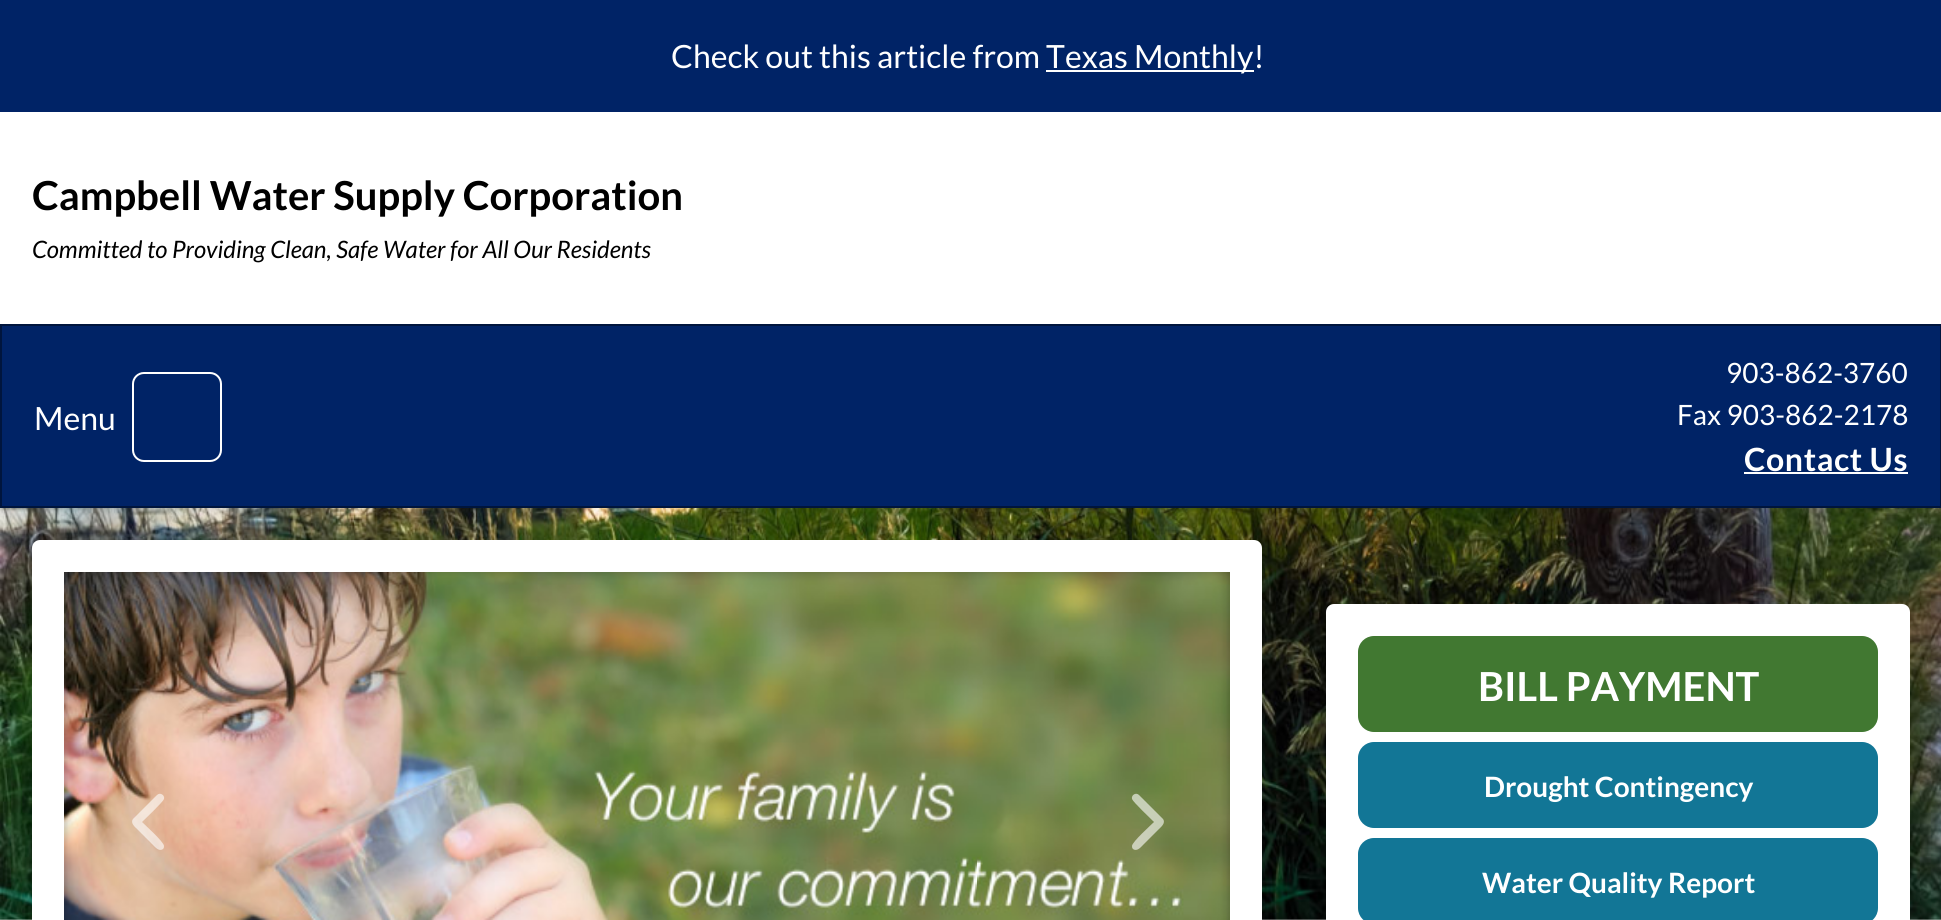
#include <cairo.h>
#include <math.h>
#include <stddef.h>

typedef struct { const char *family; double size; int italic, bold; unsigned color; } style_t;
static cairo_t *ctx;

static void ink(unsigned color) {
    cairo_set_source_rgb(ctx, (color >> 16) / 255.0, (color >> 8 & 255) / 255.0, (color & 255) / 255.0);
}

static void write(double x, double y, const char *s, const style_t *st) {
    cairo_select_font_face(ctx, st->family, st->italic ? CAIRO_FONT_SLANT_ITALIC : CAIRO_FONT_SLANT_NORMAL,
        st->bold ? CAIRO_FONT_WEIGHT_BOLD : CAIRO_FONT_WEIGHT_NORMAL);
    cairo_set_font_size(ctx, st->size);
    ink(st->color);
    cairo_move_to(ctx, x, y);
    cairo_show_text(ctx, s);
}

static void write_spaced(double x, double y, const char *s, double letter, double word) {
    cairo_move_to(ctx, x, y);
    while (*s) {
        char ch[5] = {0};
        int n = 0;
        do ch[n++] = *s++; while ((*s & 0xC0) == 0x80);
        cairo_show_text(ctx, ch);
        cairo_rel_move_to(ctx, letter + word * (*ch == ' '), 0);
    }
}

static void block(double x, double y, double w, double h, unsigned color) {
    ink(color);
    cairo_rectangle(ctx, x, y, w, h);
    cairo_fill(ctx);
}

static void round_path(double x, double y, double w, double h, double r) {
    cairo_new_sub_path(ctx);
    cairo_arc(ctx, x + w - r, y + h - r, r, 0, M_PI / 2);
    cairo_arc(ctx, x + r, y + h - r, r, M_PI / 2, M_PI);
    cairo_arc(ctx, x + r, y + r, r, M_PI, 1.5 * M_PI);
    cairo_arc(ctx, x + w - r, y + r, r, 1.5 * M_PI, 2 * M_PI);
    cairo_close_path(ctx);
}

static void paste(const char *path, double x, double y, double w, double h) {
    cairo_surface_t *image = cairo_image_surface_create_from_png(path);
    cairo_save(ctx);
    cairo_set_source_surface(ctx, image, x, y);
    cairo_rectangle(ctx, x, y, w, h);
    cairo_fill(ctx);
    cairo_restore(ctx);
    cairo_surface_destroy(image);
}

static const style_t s1 = {"Lato", 32, 0, 0, 0xffffff};
static const style_t s2 = {"Lato", 40, 0, 1, 0x000000};
static const style_t s3 = {"Lato", 24, 1, 0, 0x000000};
static const style_t s4 = {"Lato", 28, 0, 0, 0xffffff};
static const style_t s5 = {"Lato", 40, 0, 1, 0xffffff};
static const style_t s6 = {"Lato", 28, 0, 1, 0xffffff};

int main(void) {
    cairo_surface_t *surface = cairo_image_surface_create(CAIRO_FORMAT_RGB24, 1941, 920);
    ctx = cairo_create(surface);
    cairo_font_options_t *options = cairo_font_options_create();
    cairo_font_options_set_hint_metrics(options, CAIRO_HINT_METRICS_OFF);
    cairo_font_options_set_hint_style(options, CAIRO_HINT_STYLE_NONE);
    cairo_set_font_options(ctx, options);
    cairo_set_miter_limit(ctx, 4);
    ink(0xffffff);
    cairo_paint(ctx);
    paste("pic1.png", 0, 508, 1941, 412);
    block(0, 0, 1941, 112, 0x002366);
    write(671, 68, "Check out this article from", &s1);
    block(1046, 70, 208, 2, 0xffffff);
    write(1046, 68, "Texas Monthly!", &s1);
    write(32, 210, "Campbell Water Supply Corporation", &s2);
    write(32, 258, "Committed to Providing Clean, Safe Water for All Our Residents", &s3);
    ink(0x002366);
    cairo_rectangle(ctx, 1, 325, 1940, 182);
    cairo_fill_preserve(ctx);
    ink(0x00153d);
    cairo_stroke(ctx);
    write(34, 430, "Menu", &s1);
    round_path(133, 373, 88, 88, 11);
    cairo_stroke(ctx);
    write(1726, 383, "903-862-3760", &s4);
    write(1677, 425, "Fax 903-862-2178", &s4);
    cairo_select_font_face(ctx, "Lato", CAIRO_FONT_SLANT_NORMAL, CAIRO_FONT_WEIGHT_BOLD);
    cairo_set_font_size(ctx, 32);
    write_spaced(1744, 471, "Contact Us", 0.6, 0);
    block(1744, 472, 164, 2, 0xffffff);
    round_path(32, 540, 1230, 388, 8);
    cairo_fill(ctx);
    paste("pic2.png", 64, 572, 1166, 348);
    cairo_set_source_rgba(ctx, 1, 1, 1, 0.6);
    cairo_new_path(ctx);
    cairo_move_to(ctx, 133, 819);
    cairo_curve_to(ctx, 130, 823, 135, 827, 137, 829);
    cairo_line_to(ctx, 153, 845);
    cairo_curve_to(ctx, 155, 847, 159, 852, 163, 849);
    cairo_curve_to(ctx, 164, 848, 164, 847, 164, 846);
    cairo_curve_to(ctx, 164, 842, 145, 825, 142, 822);
    cairo_curve_to(ctx, 145, 819, 163, 802, 164, 799);
    cairo_curve_to(ctx, 165, 795, 160, 792, 157, 795);
    cairo_close_path(ctx);
    cairo_fill(ctx);
    cairo_new_path(ctx);
    cairo_move_to(ctx, 1163, 819);
    cairo_curve_to(ctx, 1166, 823, 1161, 827, 1159, 829);
    cairo_line_to(ctx, 1143, 845);
    cairo_curve_to(ctx, 1141, 847, 1137, 852, 1133, 849);
    cairo_curve_to(ctx, 1132, 848, 1132, 847, 1132, 846);
    cairo_curve_to(ctx, 1132, 842, 1151, 825, 1154, 822);
    cairo_curve_to(ctx, 1151, 819, 1133, 802, 1132, 799);
    cairo_curve_to(ctx, 1131, 795, 1136, 792, 1139, 795);
    cairo_close_path(ctx);
    cairo_fill(ctx);
    ink(0xffffff);
    round_path(1326, 604, 584, 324, 8);
    cairo_fill(ctx);
    ink(0x417831);
    round_path(1359, 637, 518, 94, 15);
    cairo_fill_preserve(ctx);
    cairo_stroke(ctx);
    write(1478, 701, "BILL PAYMENT", &s5);
    ink(0x127696);
    round_path(1359, 743, 518, 84, 15);
    cairo_fill_preserve(ctx);
    cairo_stroke(ctx);
    write(1484, 797, "Drought Contingency", &s6);
    ink(0x127696);
    round_path(1359, 839, 518, 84, 15);
    cairo_fill_preserve(ctx);
    cairo_stroke(ctx);
    write(1482, 893, "Water Quality Report", &s6);
    cairo_surface_write_to_png(surface, "screenshot.png");
    cairo_font_options_destroy(options);
    cairo_destroy(ctx);
    cairo_surface_destroy(surface);
    return 0;
}
